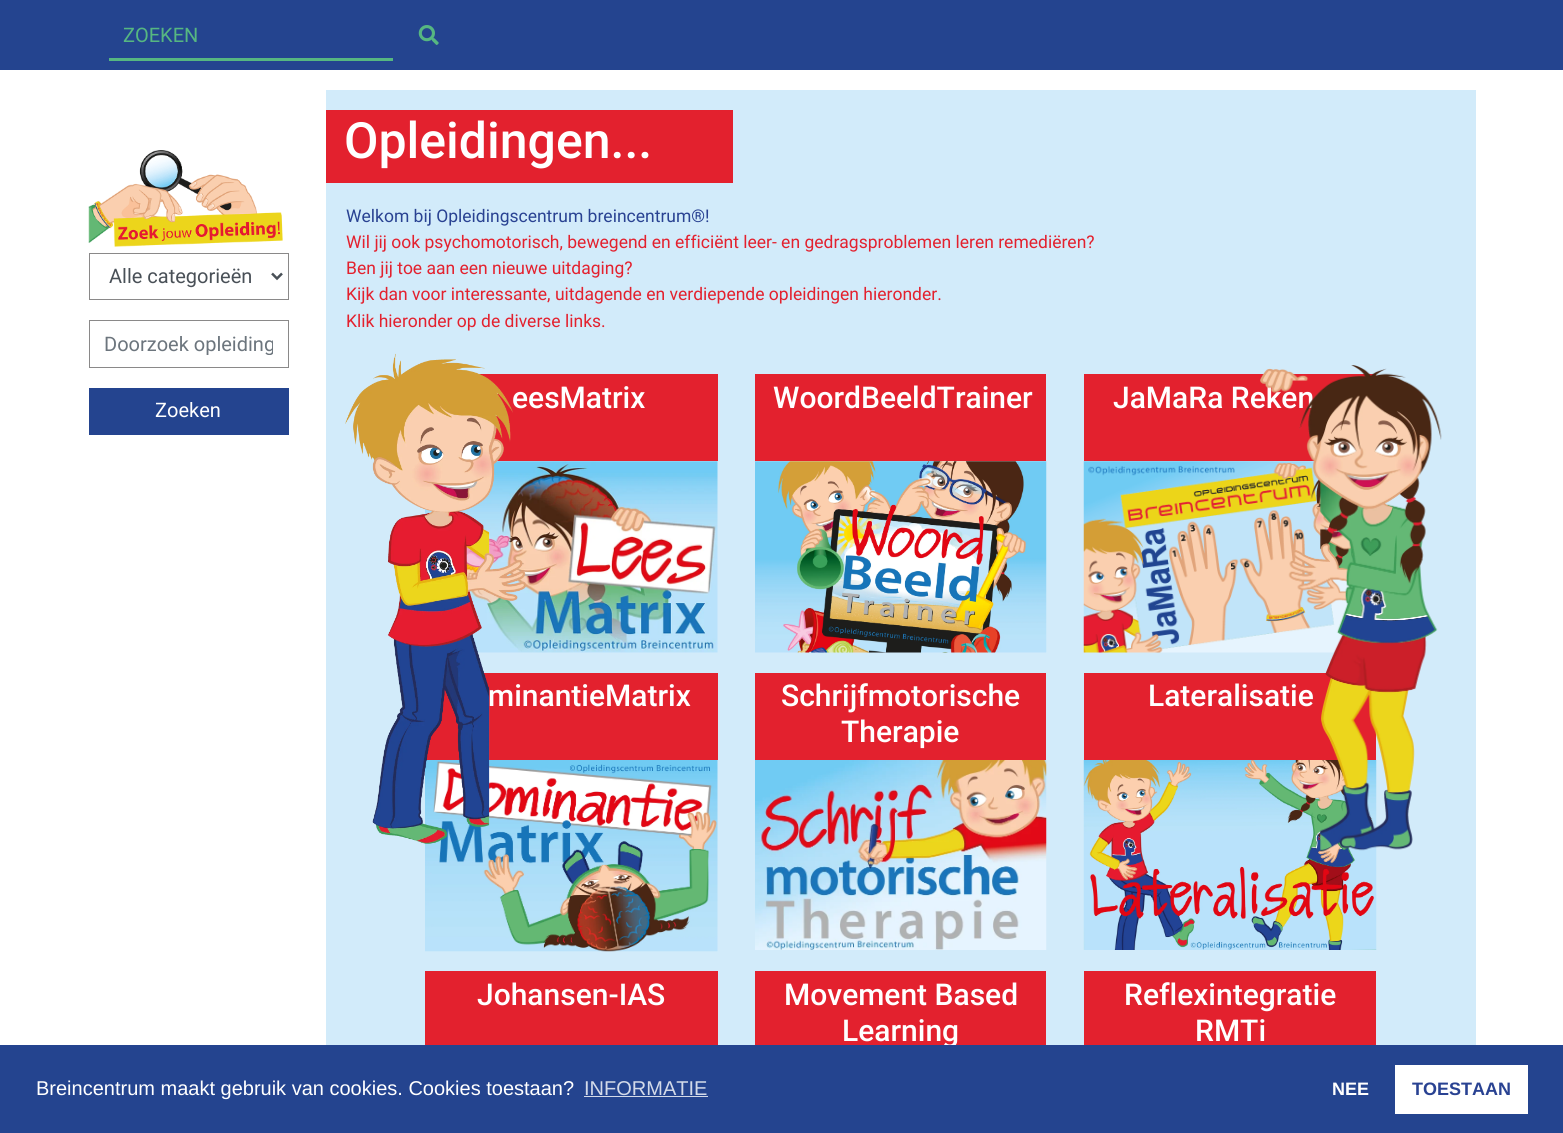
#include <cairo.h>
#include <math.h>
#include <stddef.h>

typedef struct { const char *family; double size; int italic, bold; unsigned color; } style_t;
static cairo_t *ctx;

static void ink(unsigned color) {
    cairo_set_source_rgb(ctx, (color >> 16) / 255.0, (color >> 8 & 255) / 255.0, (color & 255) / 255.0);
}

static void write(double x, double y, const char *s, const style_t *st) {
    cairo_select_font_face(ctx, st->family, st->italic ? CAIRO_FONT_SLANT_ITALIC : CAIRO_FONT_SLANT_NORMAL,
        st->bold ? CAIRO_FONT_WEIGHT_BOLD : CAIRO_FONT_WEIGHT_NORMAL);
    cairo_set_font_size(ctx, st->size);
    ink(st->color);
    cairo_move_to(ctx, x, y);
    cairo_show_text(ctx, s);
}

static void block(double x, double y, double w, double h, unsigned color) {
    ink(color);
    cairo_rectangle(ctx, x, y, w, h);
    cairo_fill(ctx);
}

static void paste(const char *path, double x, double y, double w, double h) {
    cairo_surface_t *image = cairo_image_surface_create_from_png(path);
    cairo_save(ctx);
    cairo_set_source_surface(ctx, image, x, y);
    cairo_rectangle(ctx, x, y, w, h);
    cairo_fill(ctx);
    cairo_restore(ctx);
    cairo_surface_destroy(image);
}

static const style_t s1 = {"Roboto", 20, 0, 0, 0x56b781};
static const style_t s2 = {"Roboto", 20, 0, 0, 0x495057};
static const style_t s3 = {"Roboto", 20, 0, 0, 0x6c757d};
static const style_t s4 = {"Roboto", 20, 0, 0, 0xffffff};
static const style_t s5 = {"Roboto Medium", 50, 0, 0, 0xffffff};
static const style_t s6 = {"Roboto", 17.5, 0, 0, 0x294292};
static const style_t s7 = {"Roboto", 17.5, 0, 0, 0xe3212e};
static const style_t s8 = {"Roboto Medium", 30, 0, 0, 0xffffff};
static const style_t s9 = {"Liberation Sans", 20, 0, 0, 0xffffff};
static const style_t s10 = {"Liberation Sans", 20, 0, 0, 0xd3dae9};
static const style_t s11 = {"Liberation Sans", 18, 0, 1, 0xffffff};
static const style_t s12 = {"Liberation Sans", 18, 0, 1, 0x294292};

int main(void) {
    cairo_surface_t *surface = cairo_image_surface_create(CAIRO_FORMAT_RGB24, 1563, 1133);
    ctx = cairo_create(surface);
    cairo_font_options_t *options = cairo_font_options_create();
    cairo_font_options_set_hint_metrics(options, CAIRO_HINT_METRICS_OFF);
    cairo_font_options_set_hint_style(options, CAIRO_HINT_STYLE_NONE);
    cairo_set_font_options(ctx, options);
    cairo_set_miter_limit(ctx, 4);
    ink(0xffffff);
    cairo_paint(ctx);
    block(0, 0, 1563, 70, 0x24448f);
    block(109, 58, 284, 3, 0x56b781);
    write(123, 42, "ZOEKEN", &s1);
    paste("pic1.png", 418, 25, 21, 20);
    paste("pic2.png", 88, 150, 195, 97);
    cairo_rectangle(ctx, 89.5, 253.5, 199, 46);
    ink(0x8a8989);
    cairo_set_line_width(ctx, 1);
    cairo_stroke(ctx);
    cairo_new_path(ctx);
    cairo_move_to(ctx, 272, 273.5);
    cairo_line_to(ctx, 277, 278.5);
    cairo_line_to(ctx, 282, 273.5);
    ink(0x495057);
    cairo_set_line_width(ctx, 2.5);
    cairo_stroke(ctx);
    write(109, 283, "Alle categorieën", &s2);
    cairo_rectangle(ctx, 89.5, 320.5, 199, 47);
    ink(0x8a8989);
    cairo_set_line_width(ctx, 1);
    cairo_stroke(ctx);
    cairo_save(ctx);
    cairo_rectangle(ctx, 105, 331, 168, 24);
    cairo_clip(ctx);
    write(104, 351, "Doorzoek opleiding", &s3);
    cairo_restore(ctx);
    block(89, 388, 200, 47, 0x24448f);
    write(155, 417, "Zoeken", &s4);
    block(326, 90, 1150, 955, 0xd2ebfa);
    block(326, 110, 407, 73, 0xe3212e);
    write(344, 158, "Opleidingen...", &s5);
    write(346, 222, "Welkom bij Opleidingscentrum breincentrum®!", &s6);
    write(346, 248, "Wil jij ook psychomotorisch, bewegend en efficiënt leer- en gedragsproblemen leren remediëren?", &s7);
    write(346, 274, "Ben jij toe aan een nieuwe uitdaging?", &s7);
    write(346, 300, "Kijk dan voor interessante, uitdagende en verdiepende opleidingen hieronder.", &s7);
    write(346, 327, "Klik hieronder op de diverse links.", &s7);
    block(479, 374, 239, 87, 0xe3212e);
    write(512, 408, "eesMatrix", &s8);
    paste("pic4.png", 425, 461, 293, 192);
    block(426, 673, 292, 87, 0xe3212e);
    write(488, 706, "minantieMatrix", &s8);
    paste("pic7.png", 425, 760, 293, 192);
    paste("pic3.png", 345, 353, 181, 491);
    block(755, 374, 291, 87, 0xe3212e);
    write(773, 408, "WoordBeeldTrainer", &s8);
    paste("pic5.png", 755, 461, 292, 192);
    block(1084, 374, 292, 87, 0xe3212e);
    write(1113, 408, "JaMaRa Reken", &s8);
    paste("pic6.png", 1083, 461, 271, 192);
    block(755, 673, 291, 87, 0xe3212e);
    write(781, 706, "Schrijfmotorische", &s8);
    write(841, 742, "Therapie", &s8);
    paste("pic8.png", 755, 760, 292, 190);
    block(1084, 673, 292, 87, 0xe3212e);
    write(1148, 706, "Lateralisatie", &s8);
    paste("pic9.png", 1083, 760, 294, 190);
    block(425, 971, 293, 74, 0xe3212e);
    write(477, 1005, "Johansen-IAS", &s8);
    block(755, 971, 291, 74, 0xe3212e);
    write(784, 1005, "Movement Based", &s8);
    write(842, 1041, "Learning", &s8);
    block(1084, 971, 292, 74, 0xe3212e);
    write(1124, 1005, "Reflexintegratie", &s8);
    write(1195, 1041, "RMTi", &s8);
    paste("pic10.png", 1260, 365, 182, 487);
    block(0, 1045, 1563, 88, 0x24448f);
    write(36, 1095, "Breincentrum maakt gebruik van cookies. Cookies toestaan?", &s9);
    write(584, 1095, "INFORMATIE", &s10);
    block(584, 1096, 124, 1, 0xd3dae9);
    write(1332, 1095, "NEE", &s11);
    block(1395, 1065, 133, 49, 0xffffff);
    write(1412, 1095, "TOESTAAN", &s12);
    cairo_surface_write_to_png(surface, "screenshot.png");
    cairo_font_options_destroy(options);
    cairo_destroy(ctx);
    cairo_surface_destroy(surface);
    return 0;
}
